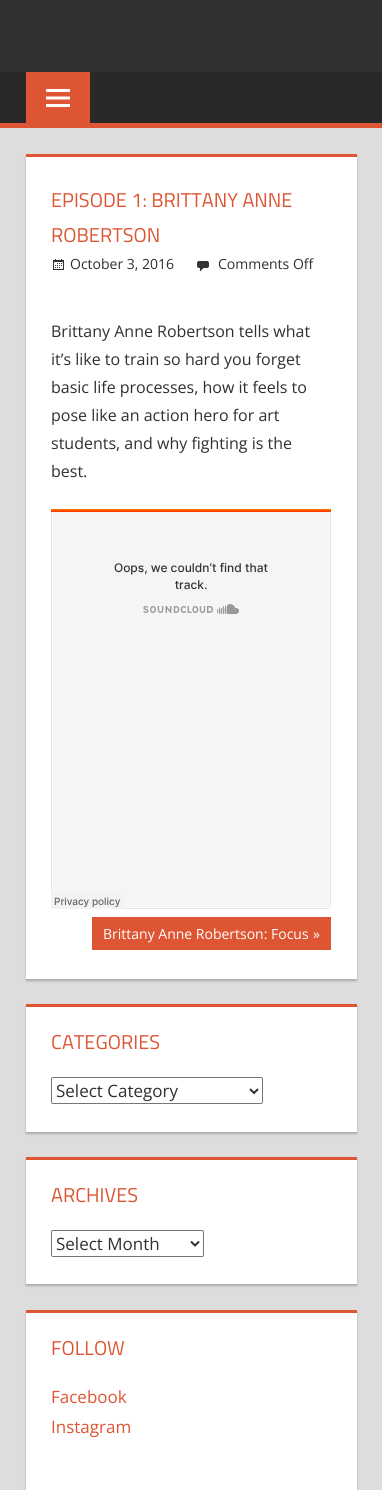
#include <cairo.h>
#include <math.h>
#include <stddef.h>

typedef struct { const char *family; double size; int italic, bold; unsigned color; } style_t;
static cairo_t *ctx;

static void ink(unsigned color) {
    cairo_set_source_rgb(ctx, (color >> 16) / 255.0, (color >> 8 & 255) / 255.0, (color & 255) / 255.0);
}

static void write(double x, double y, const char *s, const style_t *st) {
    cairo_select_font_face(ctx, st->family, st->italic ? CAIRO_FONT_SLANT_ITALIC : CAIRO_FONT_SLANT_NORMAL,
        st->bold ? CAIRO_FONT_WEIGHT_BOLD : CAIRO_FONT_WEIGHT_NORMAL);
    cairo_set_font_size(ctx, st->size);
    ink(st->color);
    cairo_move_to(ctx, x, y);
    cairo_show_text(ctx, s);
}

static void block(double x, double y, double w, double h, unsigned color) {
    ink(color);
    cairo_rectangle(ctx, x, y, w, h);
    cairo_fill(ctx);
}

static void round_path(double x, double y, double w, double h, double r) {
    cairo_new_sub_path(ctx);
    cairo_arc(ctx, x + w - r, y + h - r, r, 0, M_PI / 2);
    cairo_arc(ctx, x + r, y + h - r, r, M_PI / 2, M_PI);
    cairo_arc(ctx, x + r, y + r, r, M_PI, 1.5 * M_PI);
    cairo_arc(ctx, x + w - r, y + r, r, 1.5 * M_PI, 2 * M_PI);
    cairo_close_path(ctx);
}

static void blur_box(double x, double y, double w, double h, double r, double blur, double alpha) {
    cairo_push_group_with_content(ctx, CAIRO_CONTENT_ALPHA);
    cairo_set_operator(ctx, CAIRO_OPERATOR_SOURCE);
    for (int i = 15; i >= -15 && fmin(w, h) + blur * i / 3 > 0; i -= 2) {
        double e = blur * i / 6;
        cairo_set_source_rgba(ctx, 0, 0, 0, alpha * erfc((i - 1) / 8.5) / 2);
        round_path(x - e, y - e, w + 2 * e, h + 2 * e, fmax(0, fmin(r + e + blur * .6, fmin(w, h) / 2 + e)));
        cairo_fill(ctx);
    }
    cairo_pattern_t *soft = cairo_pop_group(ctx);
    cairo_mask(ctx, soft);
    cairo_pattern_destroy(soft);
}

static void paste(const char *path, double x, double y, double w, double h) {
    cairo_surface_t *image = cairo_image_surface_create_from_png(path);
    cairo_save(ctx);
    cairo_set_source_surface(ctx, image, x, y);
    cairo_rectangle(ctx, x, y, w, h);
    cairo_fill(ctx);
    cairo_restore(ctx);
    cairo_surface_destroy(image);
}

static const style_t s1 = {"Titillium Web", 20, 0, 0, 0xdd5533};
static const style_t s2 = {"Open Sans", 14, 0, 0, 0x303030};
static const style_t s3 = {"Open Sans", 16, 0, 0, 0x303030};
static const style_t s4 = {"Open Sans", 14, 0, 0, 0xffffff};
static const style_t s5 = {"Open Sans", 17, 0, 0, 0x303030};
static const style_t s6 = {"Open Sans", 17, 0, 0, 0xdd5533};

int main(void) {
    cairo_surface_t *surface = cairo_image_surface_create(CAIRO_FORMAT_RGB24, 382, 1490);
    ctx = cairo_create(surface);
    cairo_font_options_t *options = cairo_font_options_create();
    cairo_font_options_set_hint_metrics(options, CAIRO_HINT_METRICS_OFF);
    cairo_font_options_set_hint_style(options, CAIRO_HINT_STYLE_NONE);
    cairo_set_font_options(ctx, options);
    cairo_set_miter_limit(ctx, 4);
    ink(0xdddddd);
    cairo_paint(ctx);
    block(0, 0, 382, 72, 0x303030);
    block(0, 73, 382, 50, 0x292929);
    block(0, 72, 382, 1, 0x272727);
    block(0, 123, 382, 5, 0xdd5533);
    block(26, 72, 64, 51, 0xdd5533);
    paste("pic1.png", 46, 89, 24, 18);
    ink(0xaaaaaa);
    blur_box(26, 156, 331, 825, 0, 1, 1);
    block(26, 157, 331, 822, 0xffffff);
    block(26, 154, 331, 3, 0xdd5533);
    write(51, 207, "EPISODE 1: BRITTANY ANNE", &s1);
    write(51, 242, "ROBERTSON", &s1);
    paste("pic2.png", 53, 259, 11, 11);
    write(70, 269, "October 3, 2016", &s2);
    paste("pic3.png", 197, 261, 12, 11);
    write(218, 269, "Comments Off", &s2);
    write(51, 337, "Brittany Anne Robertson tells what", &s3);
    write(51, 365, "it’s like to train so hard you forget", &s3);
    write(51, 393, "basic life processes, how it feels to", &s3);
    write(51, 421, "pose like an action hero for art", &s3);
    write(51, 449, "students, and why fighting is the", &s3);
    write(51, 477, "best.", &s3);
    paste("pic4.png", 51, 509, 280, 400);
    block(92, 917, 239, 33, 0xdd5533);
    write(103, 939, "Brittany Anne Robertson: Focus", &s4);
    write(313, 939, "»", &s4);
    ink(0xaaaaaa);
    blur_box(26, 1006, 331, 128, 0, 1, 1);
    block(26, 1007, 331, 125, 0xffffff);
    block(26, 1004, 331, 3, 0xdd5533);
    write(51, 1049, "CATEGORIES", &s1);
    round_path(51.5, 1077.5, 211, 26, 1.5);
    ink(0x767676);
    cairo_set_line_width(ctx, 1);
    cairo_stroke(ctx);
    cairo_new_path(ctx);
    cairo_move_to(ctx, 250, 1089);
    cairo_line_to(ctx, 254, 1093);
    cairo_line_to(ctx, 258, 1089);
    ink(0x303030);
    cairo_set_line_width(ctx, 2);
    cairo_stroke(ctx);
    write(56, 1097, "Select Category", &s5);
    ink(0xaaaaaa);
    blur_box(26, 1159, 331, 127, 0, 1, 1);
    block(26, 1160, 331, 124, 0xffffff);
    block(26, 1157, 331, 3, 0xdd5533);
    write(51, 1202, "ARCHIVES", &s1);
    round_path(51.5, 1230.5, 152, 26, 1.5);
    ink(0x767676);
    cairo_set_line_width(ctx, 1);
    cairo_stroke(ctx);
    cairo_new_path(ctx);
    cairo_move_to(ctx, 191, 1241.5);
    cairo_line_to(ctx, 195, 1245.5);
    cairo_line_to(ctx, 199, 1241.5);
    ink(0x303030);
    cairo_set_line_width(ctx, 2);
    cairo_stroke(ctx);
    write(56, 1250, "Select Month", &s5);
    ink(0xaaaaaa);
    blur_box(26, 1312, 331, 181, 0, 1, 1);
    block(26, 1313, 331, 177, 0xffffff);
    block(26, 1310, 331, 3, 0xdd5533);
    write(51, 1355, "FOLLOW", &s1);
    write(51, 1403, "Facebook", &s6);
    write(51, 1433, "Instagram", &s6);
    cairo_surface_write_to_png(surface, "screenshot.png");
    cairo_font_options_destroy(options);
    cairo_destroy(ctx);
    cairo_surface_destroy(surface);
    return 0;
}
